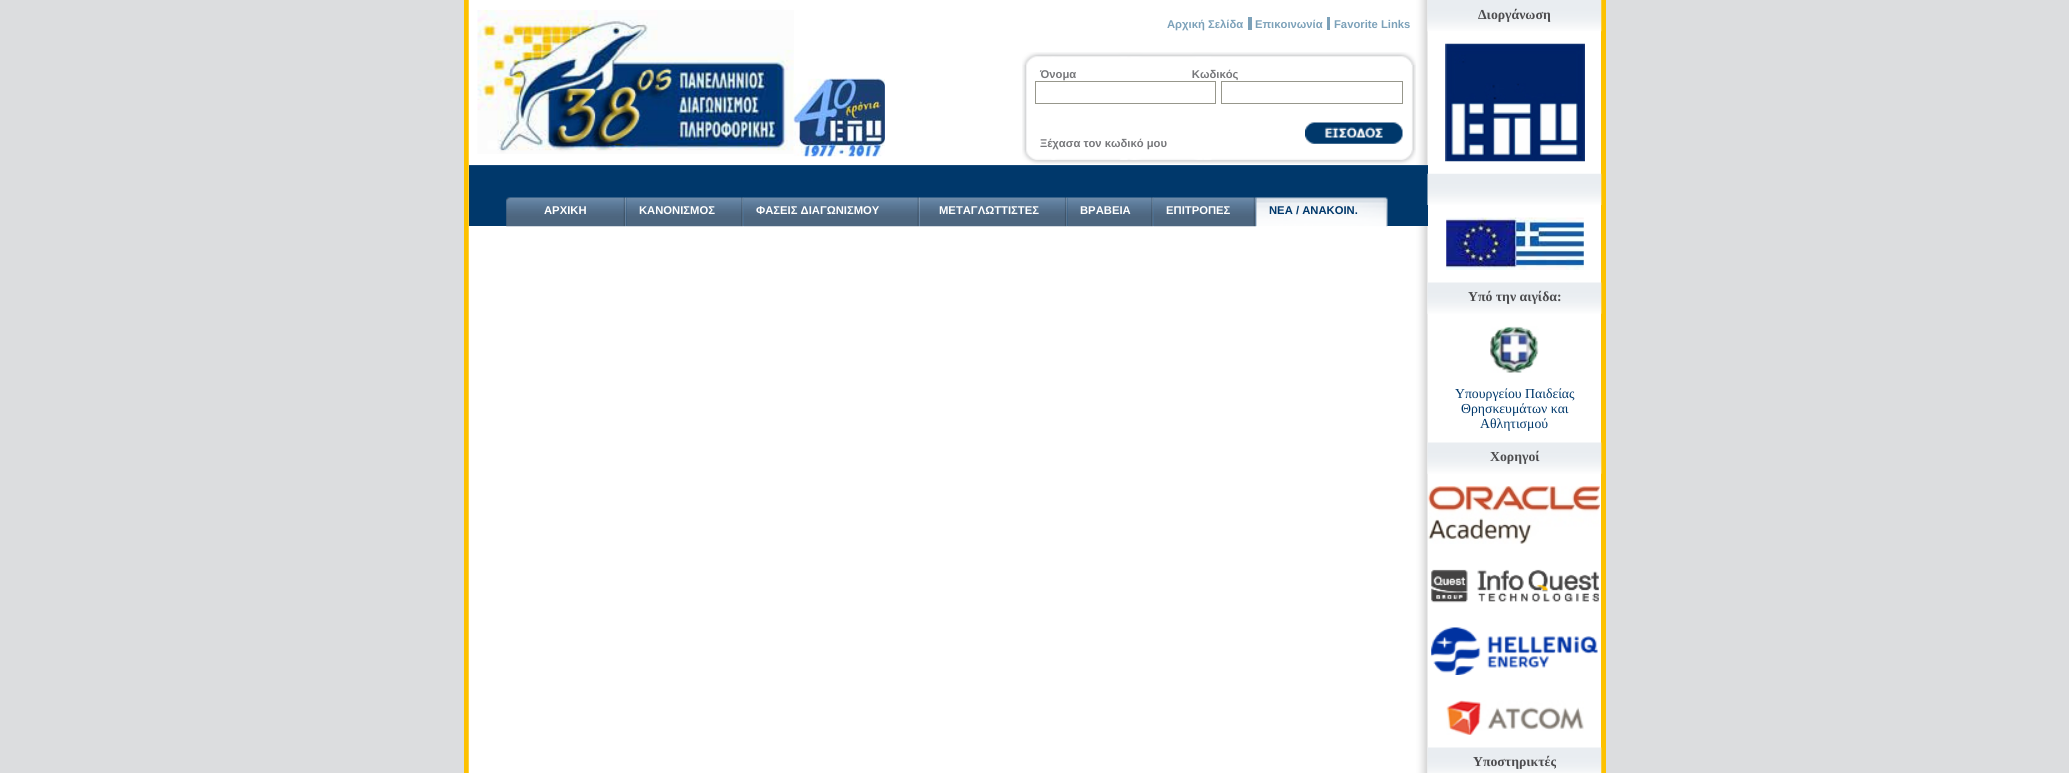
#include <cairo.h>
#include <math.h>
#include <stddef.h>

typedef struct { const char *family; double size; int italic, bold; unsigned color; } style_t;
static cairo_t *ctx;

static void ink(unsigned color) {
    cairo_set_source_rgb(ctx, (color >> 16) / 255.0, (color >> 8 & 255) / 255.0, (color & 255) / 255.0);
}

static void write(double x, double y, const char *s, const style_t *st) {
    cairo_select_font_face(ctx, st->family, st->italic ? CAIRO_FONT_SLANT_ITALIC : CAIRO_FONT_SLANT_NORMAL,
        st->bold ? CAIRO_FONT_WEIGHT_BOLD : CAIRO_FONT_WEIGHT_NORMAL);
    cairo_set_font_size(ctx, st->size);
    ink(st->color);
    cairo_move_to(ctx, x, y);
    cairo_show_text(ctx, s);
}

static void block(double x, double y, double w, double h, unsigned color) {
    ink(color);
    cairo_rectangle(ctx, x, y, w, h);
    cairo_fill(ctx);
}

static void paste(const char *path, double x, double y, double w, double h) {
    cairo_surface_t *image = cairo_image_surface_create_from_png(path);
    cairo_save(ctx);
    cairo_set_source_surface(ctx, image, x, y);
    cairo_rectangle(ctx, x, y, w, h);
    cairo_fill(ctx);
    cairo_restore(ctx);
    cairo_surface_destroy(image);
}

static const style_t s1 = {"Liberation Sans", 11.25, 0, 1, 0x7ca1b9};
static const style_t s2 = {"Liberation Sans", 11.25, 0, 1, 0x77787b};
static const style_t s3 = {"Liberation Sans", 11.25, 0, 1, 0xffffff};
static const style_t s4 = {"Liberation Sans", 11.25, 0, 1, 0x00386b};
static const style_t s5 = {"Liberation Serif", 13.75, 0, 1, 0x4d4d4f};
static const style_t s6 = {"Liberation Serif", 13.75, 0, 0, 0x00386b};

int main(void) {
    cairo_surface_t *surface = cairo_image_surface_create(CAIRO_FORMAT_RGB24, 2069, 773);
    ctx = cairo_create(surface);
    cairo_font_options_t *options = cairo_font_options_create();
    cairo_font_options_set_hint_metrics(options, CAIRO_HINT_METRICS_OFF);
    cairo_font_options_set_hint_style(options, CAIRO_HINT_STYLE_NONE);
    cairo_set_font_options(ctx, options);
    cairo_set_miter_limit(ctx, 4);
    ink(0xdcdddf);
    cairo_paint(ctx);
    block(1601, 0, 5, 773, 0xfdc100);
    block(464, 0, 5, 773, 0xfdc100);
    block(1427, 0, 174, 773, 0xffffff);
    paste("pic1.png", 468, 0, 960, 773);
    paste("pic2.png", 477, 10, 317, 144);
    paste("pic3.png", 793, 78, 92, 79);
    write(1167, 28, "Αρχική Σελίδα", &s1);
    write(1255, 28, "Επικοινωνία", &s1);
    block(1248, 17, 4, 13, 0x7ca1b9);
    write(1334, 28, "Favorite Links", &s1);
    block(1327, 17, 3, 13, 0x7ca1b9);
    paste("pic4.png", 1022, 52, 394, 13);
    paste("pic5.png", 1022, 65, 394, 85);
    write(1040, 78, "Όνομα                                     Κωδικός", &s2);
    cairo_rectangle(ctx, 1035.5, 81.5, 180, 22);
    ink(0x97978c);
    cairo_set_line_width(ctx, 1);
    cairo_stroke(ctx);
    cairo_rectangle(ctx, 1221.5, 81.5, 181, 22);
    cairo_stroke(ctx);
    write(1040, 147, "Ξέχασα τον κωδικό μου", &s2);
    paste("pic6.png", 1305, 122, 98, 22);
    paste("pic7.png", 1022, 150, 394, 14);
    block(469, 166, 959, 60, 0x00386b);
    block(469, 165, 959, 1, 0x164978);
    paste("pic8.png", 506, 197, 121, 30);
    write(544, 214, "ΑΡΧΙΚΗ", &s3);
    paste("pic9.png", 626, 197, 118, 30);
    write(639, 214, "ΚΑΝΟΝΙΣΜΟΣ", &s3);
    paste("pic10.png", 743, 197, 177, 30);
    write(756, 214, "ΦΑΣΕΙΣ ΔΙΑΓΩΝΙΣΜΟΥ", &s3);
    paste("pic11.png", 920, 197, 148, 30);
    write(939, 214, "ΜΕΤΑΓΛΩΤTΙΣΤΕΣ", &s3);
    paste("pic12.png", 1067, 197, 87, 30);
    write(1080, 214, "ΒΡΑΒΕΙΑ", &s3);
    paste("pic13.png", 1153, 197, 104, 30);
    write(1166, 214, "ΕΠΙΤΡΟΠΕΣ", &s3);
    paste("pic14.png", 1256, 197, 132, 30);
    write(1269, 214, "NΕΑ / ΑΝΑΚΟΙΝ.", &s4);
    paste("pic15.png", 1427, 0, 175, 32);
    write(1478, 19, "Διοργάνωση", &s5);
    paste("pic16.png", 1445, 43, 140, 119);
    paste("pic17.png", 1427, 173, 175, 32);
    paste("pic18.png", 1446, 217, 138, 53);
    paste("pic19.png", 1427, 282, 175, 32);
    write(1468, 301, "Υπό την αιγίδα:", &s5);
    paste("pic20.png", 1490, 326, 49, 47);
    write(1455, 398, "Υπουργείου Παιδείας", &s6);
    write(1461, 413, "Θρησκευμάτων και", &s6);
    write(1480, 428, "Αθλητισμού", &s6);
    paste("pic21.png", 1427, 442, 175, 32);
    write(1490, 461, "Χορηγοί", &s5);
    paste("pic22.png", 1428, 486, 172, 58);
    paste("pic23.png", 1431, 569, 168, 34);
    paste("pic24.png", 1431, 627, 167, 48);
    paste("pic25.png", 1446, 700, 138, 35);
    paste("pic26.png", 1427, 747, 175, 26);
    write(1473, 766, "Υποστηρικτές", &s5);
    cairo_surface_write_to_png(surface, "screenshot.png");
    cairo_font_options_destroy(options);
    cairo_destroy(ctx);
    cairo_surface_destroy(surface);
    return 0;
}
